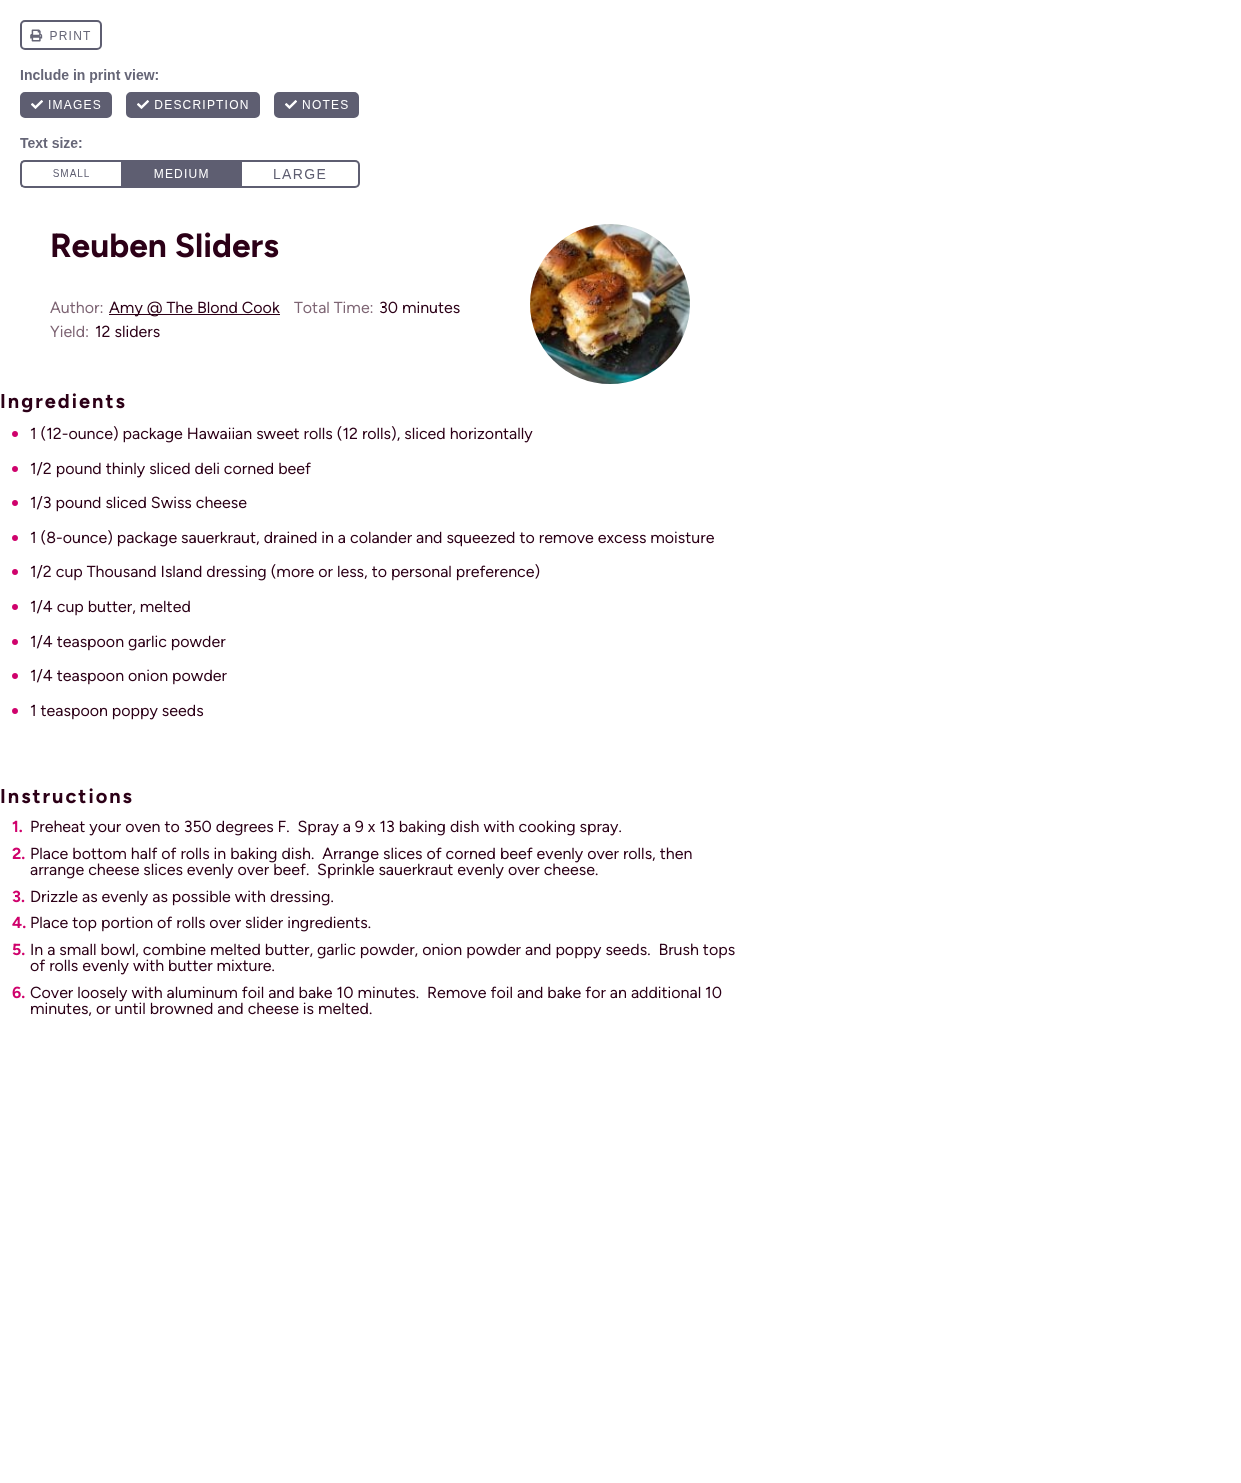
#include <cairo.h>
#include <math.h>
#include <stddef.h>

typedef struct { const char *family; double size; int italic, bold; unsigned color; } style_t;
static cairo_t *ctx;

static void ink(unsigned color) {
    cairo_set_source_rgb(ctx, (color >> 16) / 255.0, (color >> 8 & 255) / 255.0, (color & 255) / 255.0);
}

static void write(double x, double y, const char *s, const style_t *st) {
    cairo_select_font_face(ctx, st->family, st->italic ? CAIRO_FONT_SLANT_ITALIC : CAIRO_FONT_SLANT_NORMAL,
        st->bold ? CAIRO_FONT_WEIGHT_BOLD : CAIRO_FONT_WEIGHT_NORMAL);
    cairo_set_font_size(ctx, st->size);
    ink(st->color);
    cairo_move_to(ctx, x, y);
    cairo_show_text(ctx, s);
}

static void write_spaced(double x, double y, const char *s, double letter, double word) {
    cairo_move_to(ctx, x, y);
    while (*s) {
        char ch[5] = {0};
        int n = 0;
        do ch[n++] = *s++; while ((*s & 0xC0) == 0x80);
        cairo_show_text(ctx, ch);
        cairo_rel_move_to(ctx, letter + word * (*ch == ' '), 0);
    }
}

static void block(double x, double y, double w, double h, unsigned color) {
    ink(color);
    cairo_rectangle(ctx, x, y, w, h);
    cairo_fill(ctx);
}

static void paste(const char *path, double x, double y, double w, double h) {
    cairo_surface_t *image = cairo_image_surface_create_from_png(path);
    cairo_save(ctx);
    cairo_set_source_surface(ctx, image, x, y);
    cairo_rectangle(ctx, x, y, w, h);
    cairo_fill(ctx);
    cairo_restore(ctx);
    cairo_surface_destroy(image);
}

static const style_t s1 = {"Figtree", 33.5, 0, 1, 0x2c0017};
static const style_t s2 = {"Figtree", 16, 0, 0, 0x7d6473};
static const style_t s3 = {"Figtree", 16, 0, 0, 0x2c0017};
static const style_t s4 = {"Figtree", 16, 0, 1, 0xcf026c};

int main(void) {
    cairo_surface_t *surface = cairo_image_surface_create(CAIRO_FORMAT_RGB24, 1241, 1483);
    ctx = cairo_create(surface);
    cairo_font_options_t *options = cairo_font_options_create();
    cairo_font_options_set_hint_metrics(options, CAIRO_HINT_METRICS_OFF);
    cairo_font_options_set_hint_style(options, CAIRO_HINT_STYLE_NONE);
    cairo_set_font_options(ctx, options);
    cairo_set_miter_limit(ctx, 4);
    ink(0xffffff);
    cairo_paint(ctx);
    paste("pic1.png", 20, 20, 340, 168);
    write(50, 257, "Reuben Sliders", &s1);
    paste("pic2.png", 530, 224, 160, 160);
    write(50, 313, "Author:", &s2);
    block(109, 314, 171, 1, 0x2c0017);
    write(109, 313, "Amy @ The Blond Cook", &s3);
    write(294, 313, "Total Time:", &s2);
    write(379, 313, "30 minutes", &s3);
    write(50, 337, "Yield:", &s2);
    write(95, 337, "12 sliders", &s3);
    cairo_select_font_face(ctx, "Figtree", CAIRO_FONT_SLANT_NORMAL, CAIRO_FONT_WEIGHT_BOLD);
    cairo_set_font_size(ctx, 20);
    write_spaced(0, 408, "Ingredients", 2, 0);
    ink(0xcf026c);
    cairo_new_path(ctx);
    cairo_arc(ctx, 15, 434, 3, 0, 2 * M_PI);
    cairo_fill(ctx);
    write(30, 439, "1 (12-ounce) package Hawaiian sweet rolls (12 rolls), sliced horizontally", &s3);
    ink(0xcf026c);
    cairo_new_path(ctx);
    cairo_arc(ctx, 15, 469, 3, 0, 2 * M_PI);
    cairo_fill(ctx);
    write(30, 474, "1/2 pound thinly sliced deli corned beef", &s3);
    ink(0xcf026c);
    cairo_new_path(ctx);
    cairo_arc(ctx, 15, 503, 3, 0, 2 * M_PI);
    cairo_fill(ctx);
    write(30, 508, "1/3 pound sliced Swiss cheese", &s3);
    ink(0xcf026c);
    cairo_new_path(ctx);
    cairo_arc(ctx, 15, 538, 3, 0, 2 * M_PI);
    cairo_fill(ctx);
    write(30, 543, "1 (8-ounce) package sauerkraut, drained in a colander and squeezed to remove excess moisture", &s3);
    ink(0xcf026c);
    cairo_new_path(ctx);
    cairo_arc(ctx, 15, 572, 3, 0, 2 * M_PI);
    cairo_fill(ctx);
    write(30, 577, "1/2 cup Thousand Island dressing (more or less, to personal preference)", &s3);
    ink(0xcf026c);
    cairo_new_path(ctx);
    cairo_arc(ctx, 15, 607, 3, 0, 2 * M_PI);
    cairo_fill(ctx);
    write(30, 612, "1/4 cup butter, melted", &s3);
    ink(0xcf026c);
    cairo_new_path(ctx);
    cairo_arc(ctx, 15, 642, 3, 0, 2 * M_PI);
    cairo_fill(ctx);
    write(30, 647, "1/4 teaspoon garlic powder", &s3);
    ink(0xcf026c);
    cairo_new_path(ctx);
    cairo_arc(ctx, 15, 676, 3, 0, 2 * M_PI);
    cairo_fill(ctx);
    write(30, 681, "1/4 teaspoon onion powder", &s3);
    ink(0xcf026c);
    cairo_new_path(ctx);
    cairo_arc(ctx, 15, 711, 3, 0, 2 * M_PI);
    cairo_fill(ctx);
    write(30, 716, "1 teaspoon poppy seeds", &s3);
    cairo_select_font_face(ctx, "Figtree", CAIRO_FONT_SLANT_NORMAL, CAIRO_FONT_WEIGHT_BOLD);
    cairo_set_font_size(ctx, 20);
    write_spaced(0, 803, "Instructions", 2, 0);
    write(12, 832, "1.", &s4);
    write(30, 832, "Preheat your oven to 350 degrees F.  Spray a 9 x 13 baking dish with cooking spray.", &s3);
    write(12, 859, "2.", &s4);
    write(30, 859, "Place bottom half of rolls in baking dish.  Arrange slices of corned beef evenly over rolls, then", &s3);
    write(30, 875, "arrange cheese slices evenly over beef.  Sprinkle sauerkraut evenly over cheese.", &s3);
    write(12, 902, "3.", &s4);
    write(30, 902, "Drizzle as evenly as possible with dressing.", &s3);
    write(12, 928, "4.", &s4);
    write(30, 928, "Place top portion of rolls over slider ingredients.", &s3);
    write(12, 955, "5.", &s4);
    write(30, 955, "In a small bowl, combine melted butter, garlic powder, onion powder and poppy seeds.  Brush tops", &s3);
    write(30, 971, "of rolls evenly with butter mixture.", &s3);
    write(12, 998, "6.", &s4);
    write(30, 998, "Cover loosely with aluminum foil and bake 10 minutes.  Remove foil and bake for an additional 10", &s3);
    write(30, 1014, "minutes, or until browned and cheese is melted.", &s3);
    cairo_surface_write_to_png(surface, "screenshot.png");
    cairo_font_options_destroy(options);
    cairo_destroy(ctx);
    cairo_surface_destroy(surface);
    return 0;
}
